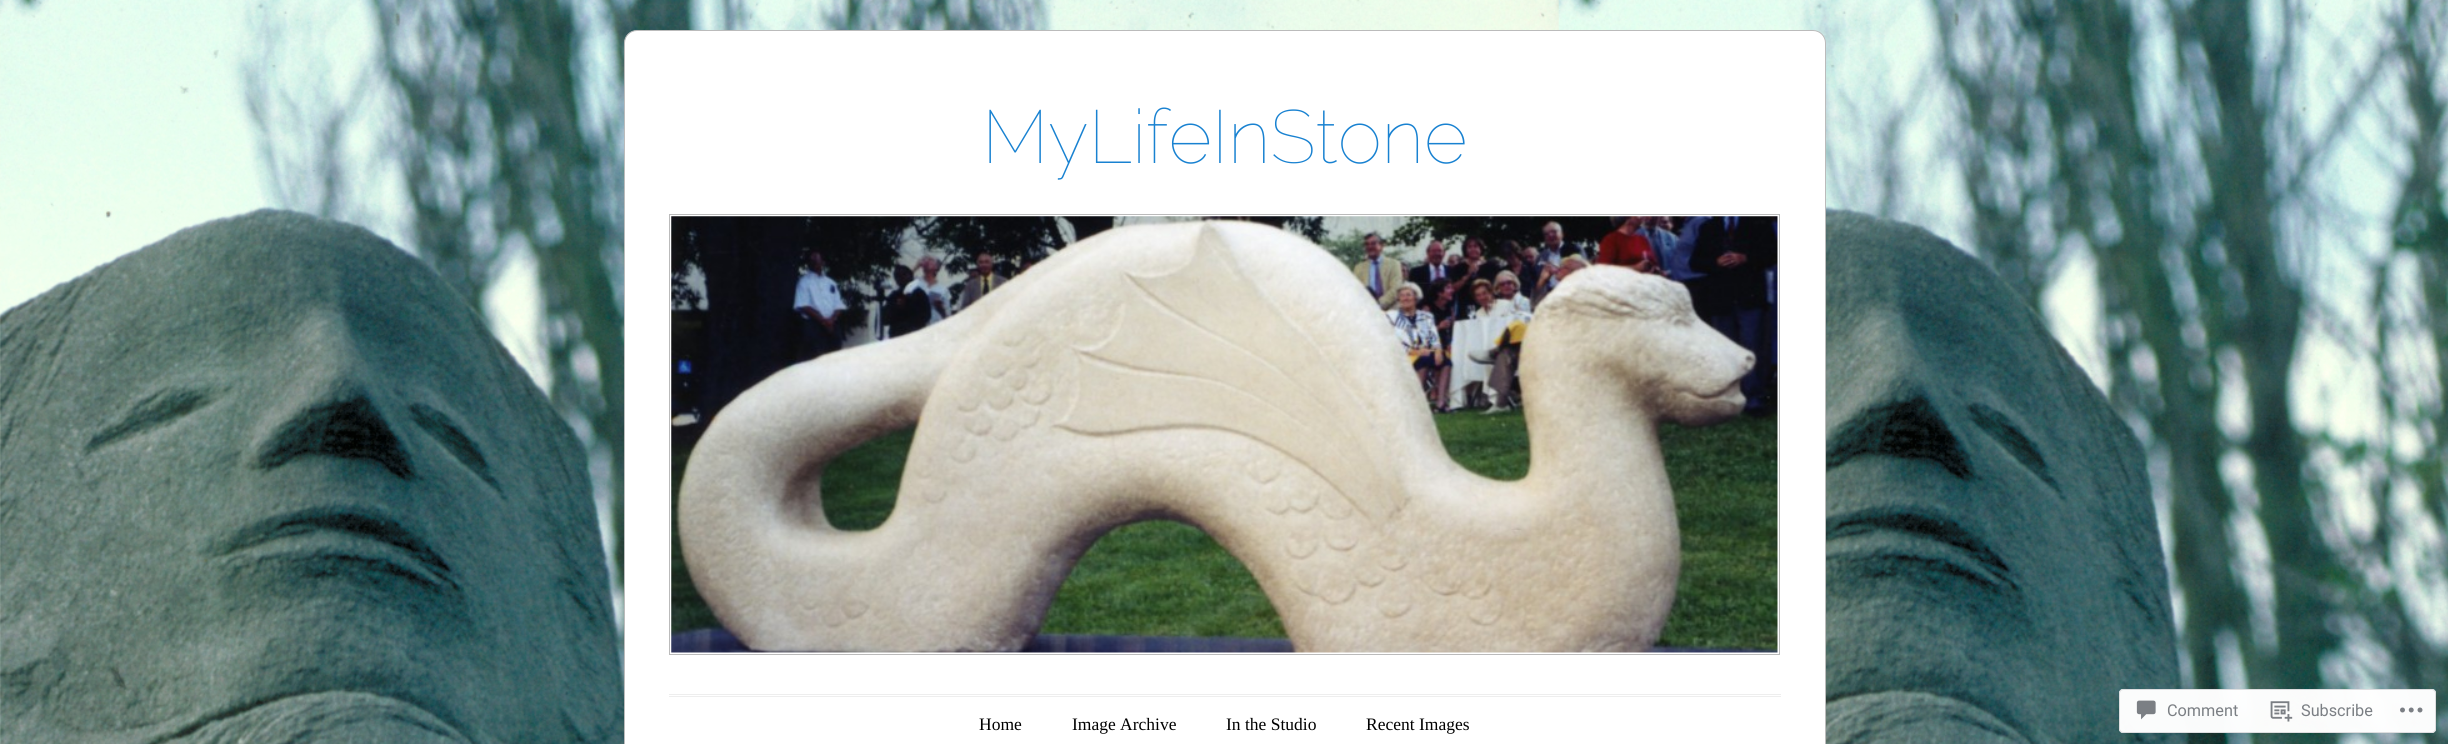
#include <cairo.h>
#include <math.h>
#include <stddef.h>

typedef struct { const char *family; double size; int italic, bold; unsigned color; } style_t;
static cairo_t *ctx;

static void ink(unsigned color) {
    cairo_set_source_rgb(ctx, (color >> 16) / 255.0, (color >> 8 & 255) / 255.0, (color & 255) / 255.0);
}

static void write(double x, double y, const char *s, const style_t *st) {
    cairo_select_font_face(ctx, st->family, st->italic ? CAIRO_FONT_SLANT_ITALIC : CAIRO_FONT_SLANT_NORMAL,
        st->bold ? CAIRO_FONT_WEIGHT_BOLD : CAIRO_FONT_WEIGHT_NORMAL);
    cairo_set_font_size(ctx, st->size);
    ink(st->color);
    cairo_move_to(ctx, x, y);
    cairo_show_text(ctx, s);
}

static void block(double x, double y, double w, double h, unsigned color) {
    ink(color);
    cairo_rectangle(ctx, x, y, w, h);
    cairo_fill(ctx);
}

static void round_path(double x, double y, double w, double h, double r) {
    cairo_new_sub_path(ctx);
    cairo_arc(ctx, x + w - r, y + h - r, r, 0, M_PI / 2);
    cairo_arc(ctx, x + r, y + h - r, r, M_PI / 2, M_PI);
    cairo_arc(ctx, x + r, y + r, r, M_PI, 1.5 * M_PI);
    cairo_arc(ctx, x + w - r, y + r, r, 1.5 * M_PI, 2 * M_PI);
    cairo_close_path(ctx);
}

static void paste(const char *path, double x, double y, double w, double h) {
    cairo_surface_t *image = cairo_image_surface_create_from_png(path);
    cairo_save(ctx);
    cairo_set_source_surface(ctx, image, x, y);
    cairo_rectangle(ctx, x, y, w, h);
    cairo_fill(ctx);
    cairo_restore(ctx);
    cairo_surface_destroy(image);
}

static const style_t s1 = {"Raleway Thin", 75, 0, 0, 0x1982d1};
static const style_t s2 = {"Liberation Serif", 17.5, 0, 0, 0x000000};
static const style_t s3 = {"Roboto", 16.25, 0, 0, 0x7b7f84};

int main(void) {
    cairo_surface_t *surface = cairo_image_surface_create(CAIRO_FORMAT_RGB24, 2448, 744);
    ctx = cairo_create(surface);
    cairo_font_options_t *options = cairo_font_options_create();
    cairo_font_options_set_hint_metrics(options, CAIRO_HINT_METRICS_OFF);
    cairo_font_options_set_hint_style(options, CAIRO_HINT_STYLE_NONE);
    cairo_set_font_options(ctx, options);
    cairo_set_miter_limit(ctx, 4);
    ink(0xffffff);
    cairo_paint(ctx);
    paste("pic1.png", 0, 0, 2448, 744);
    ink(0xffffff);
    round_path(624.5, 30.5, 1201, 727, 12.5);
    cairo_fill_preserve(ctx);
    ink(0xbbbbbb);
    cairo_set_line_width(ctx, 1);
    cairo_stroke(ctx);
    write(982, 163, "MyLifeInStone", &s1);
    cairo_rectangle(ctx, 669.5, 214.5, 1110, 440);
    ink(0xbbbbbb);
    cairo_stroke(ctx);
    paste("pic2.png", 671, 216, 1107, 437);
    block(669, 694, 1112, 1, 0xeeeeee);
    block(669, 696, 1112, 1, 0xeeeeee);
    write(979, 730, "Home", &s2);
    write(1072, 730, "Image Archive", &s2);
    write(1226, 730, "In the Studio", &s2);
    write(1366, 730, "Recent Images", &s2);
    cairo_set_source_rgba(ctx, 1, 1, 1, 0.98);
    round_path(2119, 689, 317, 44, 4);
    cairo_fill(ctx);
    round_path(2119.5, 689.5, 316, 43, 3.5);
    cairo_set_source_rgba(ctx, 0.863, 0.863, 0.871, 0.98);
    cairo_stroke(ctx);
    paste("pic3.png", 2136, 700, 20, 20);
    write(2167, 716, "Comment", &s3);
    paste("pic4.png", 2270, 701, 23, 21);
    write(2301, 716, "Subscribe", &s3);
    paste("pic5.png", 2400, 707, 23, 6);
    cairo_surface_write_to_png(surface, "screenshot.png");
    cairo_font_options_destroy(options);
    cairo_destroy(ctx);
    cairo_surface_destroy(surface);
    return 0;
}
